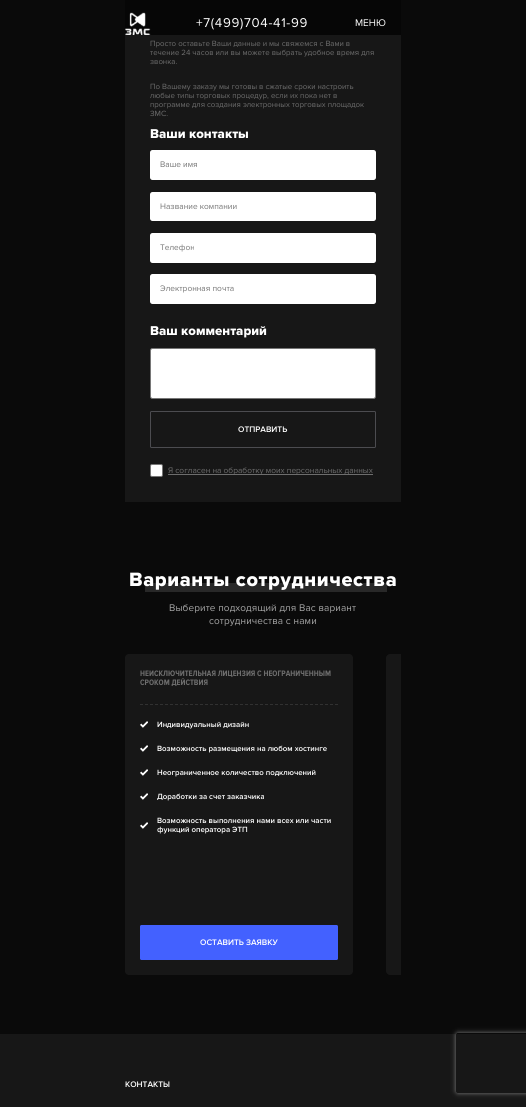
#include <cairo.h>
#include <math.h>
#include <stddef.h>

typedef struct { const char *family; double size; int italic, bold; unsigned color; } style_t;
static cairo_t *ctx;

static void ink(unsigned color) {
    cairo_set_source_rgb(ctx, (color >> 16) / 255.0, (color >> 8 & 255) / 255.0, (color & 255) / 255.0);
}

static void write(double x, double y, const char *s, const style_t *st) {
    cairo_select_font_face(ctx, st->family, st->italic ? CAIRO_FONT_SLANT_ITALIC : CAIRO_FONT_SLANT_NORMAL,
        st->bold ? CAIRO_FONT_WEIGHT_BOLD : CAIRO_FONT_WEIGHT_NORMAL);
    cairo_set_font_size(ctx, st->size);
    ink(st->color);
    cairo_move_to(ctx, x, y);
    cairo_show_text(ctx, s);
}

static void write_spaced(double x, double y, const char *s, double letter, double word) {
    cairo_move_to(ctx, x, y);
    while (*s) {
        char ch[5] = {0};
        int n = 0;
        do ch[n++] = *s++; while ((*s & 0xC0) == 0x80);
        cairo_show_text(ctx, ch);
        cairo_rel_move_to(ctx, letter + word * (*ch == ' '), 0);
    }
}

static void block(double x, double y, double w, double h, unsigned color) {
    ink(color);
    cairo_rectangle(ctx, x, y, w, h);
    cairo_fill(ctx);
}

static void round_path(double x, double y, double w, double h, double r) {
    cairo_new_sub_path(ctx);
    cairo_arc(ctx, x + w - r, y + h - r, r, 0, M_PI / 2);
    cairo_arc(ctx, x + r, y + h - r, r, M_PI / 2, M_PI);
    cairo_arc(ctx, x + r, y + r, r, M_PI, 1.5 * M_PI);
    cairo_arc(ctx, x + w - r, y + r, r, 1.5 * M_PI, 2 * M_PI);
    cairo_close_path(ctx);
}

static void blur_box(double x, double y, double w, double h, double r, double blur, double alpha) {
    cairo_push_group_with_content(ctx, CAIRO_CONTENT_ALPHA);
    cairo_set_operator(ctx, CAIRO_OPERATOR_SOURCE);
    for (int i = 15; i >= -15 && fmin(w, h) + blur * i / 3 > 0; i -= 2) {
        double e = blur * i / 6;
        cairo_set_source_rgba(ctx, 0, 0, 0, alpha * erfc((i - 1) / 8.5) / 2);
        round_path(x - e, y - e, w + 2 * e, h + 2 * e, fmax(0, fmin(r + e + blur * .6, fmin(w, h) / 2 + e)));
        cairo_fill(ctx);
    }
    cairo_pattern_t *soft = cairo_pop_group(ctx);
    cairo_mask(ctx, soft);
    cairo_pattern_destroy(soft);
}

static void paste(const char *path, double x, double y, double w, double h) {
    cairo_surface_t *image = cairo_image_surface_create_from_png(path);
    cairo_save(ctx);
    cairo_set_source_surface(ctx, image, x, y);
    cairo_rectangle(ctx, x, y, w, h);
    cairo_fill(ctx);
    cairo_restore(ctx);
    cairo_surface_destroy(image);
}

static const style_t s1 = {"Proxima Nova", 10, 0, 0, 0xffffff};
static const style_t s2 = {"Proxima Nova", 7.85, 0, 0, 0x6d6d6d};
static const style_t s3 = {"Proxima Nova ExtraBold", 13.25, 0, 0, 0xffffff};
static const style_t s4 = {"Proxima Nova", 8.35, 0, 0, 0x757575};
static const style_t s5 = {"Proxima Nova SemiBold", 8.35, 0, 0, 0xffffff};
static const style_t s6 = {"Proxima Nova", 8.35, 0, 0, 0x6d6d6d};
static const style_t s7 = {"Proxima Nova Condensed", 8.2, 0, 1, 0x6d6d6d};
static const style_t s8 = {"Proxima Nova SemiBold", 7.85, 0, 0, 0xffffff};

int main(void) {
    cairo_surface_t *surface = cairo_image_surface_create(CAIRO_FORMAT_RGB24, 526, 1107);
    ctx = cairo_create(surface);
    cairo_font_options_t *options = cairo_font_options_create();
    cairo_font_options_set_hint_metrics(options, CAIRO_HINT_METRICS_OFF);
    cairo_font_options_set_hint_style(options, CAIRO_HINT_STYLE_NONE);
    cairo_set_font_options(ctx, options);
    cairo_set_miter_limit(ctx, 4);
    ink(0x0a0a0a);
    cairo_paint(ctx);
    block(125, 0, 276, 35, 0x060606);
    paste("pic1.png", 125, 12, 26, 23);
    cairo_select_font_face(ctx, "Proxima Nova", CAIRO_FONT_SLANT_NORMAL, CAIRO_FONT_WEIGHT_NORMAL);
    cairo_set_font_size(ctx, 13.25);
    ink(0xffffff);
    write_spaced(196, 27, "+7(499)704-41-99", 0.7, 0);
    write(355, 26, "МЕНЮ", &s1);
    block(125, 35, 276, 467, 0x171717);
    write(150, 46, "Просто оставьте Ваши данные и мы свяжемся с Вами в", &s2);
    write(150, 55, "течение 24 часов или вы можете выбрать удобное время для", &s2);
    write(150, 64, "звонка.", &s2);
    write(150, 89, "По Вашему заказу мы готовы в сжатые сроки настроить", &s2);
    write(150, 98, "любые типы торговых процедур, если их пока нет в", &s2);
    write(150, 107, "программе для создания электронных торговых площадок", &s2);
    write(150, 116, "ЗМС.", &s2);
    write(150, 138, "Ваши контакты", &s3);
    round_path(150, 150, 226, 30, 2.5);
    cairo_fill(ctx);
    write(160, 167, "Ваше имя", &s4);
    ink(0xffffff);
    round_path(150, 192, 226, 29, 2.5);
    cairo_fill(ctx);
    write(160, 209, "Название компании", &s4);
    ink(0xffffff);
    round_path(150, 233, 226, 30, 2.5);
    cairo_fill(ctx);
    write(160, 250, "Телефон", &s4);
    ink(0xffffff);
    round_path(150, 274, 226, 30, 2.5);
    cairo_fill(ctx);
    write(160, 291, "Электронная почта", &s4);
    write(150, 335, "Ваш комментарий", &s3);
    round_path(150.5, 348.5, 225, 50, 2);
    cairo_fill_preserve(ctx);
    ink(0x767676);
    cairo_set_line_width(ctx, 1);
    cairo_stroke(ctx);
    round_path(150.5, 411.5, 225, 36, 1);
    ink(0x4c4c50);
    cairo_stroke(ctx);
    write(238, 432, "ОТПРАВИТЬ", &s5);
    round_path(150.5, 464.5, 12, 12, 1.5);
    cairo_fill_preserve(ctx);
    ink(0x767676);
    cairo_stroke(ctx);
    block(168, 474, 205, 1, 0x6d6d6d);
    write(168, 473, "Я согласен на обработку моих персональных данных", &s6);
    block(145, 583, 242, 9, 0x282828);
    cairo_select_font_face(ctx, "Proxima Nova ExtraBold", CAIRO_FONT_SLANT_NORMAL, CAIRO_FONT_WEIGHT_NORMAL);
    cairo_set_font_size(ctx, 20);
    ink(0xffffff);
    write_spaced(129, 586, "Варианты сотрудничества", 0.6, 0);
    cairo_select_font_face(ctx, "Proxima Nova", CAIRO_FONT_SLANT_NORMAL, CAIRO_FONT_WEIGHT_NORMAL);
    cairo_set_font_size(ctx, 10);
    ink(0xa5a5a5);
    write_spaced(169, 611, "Выберите подходящий для Вас вариант", 0.1, 0);
    write_spaced(209, 624, "сотрудничества с нами", 0.1, 0);
    ink(0x171717);
    round_path(125, 654, 228, 321, 4);
    cairo_fill(ctx);
    cairo_new_path(ctx);
    cairo_move_to(ctx, 140, 704.5);
    cairo_line_to(ctx, 338, 704.5);
    ink(0x313131);
    cairo_set_dash(ctx, (double[]){3, 2}, 2, 0);
    cairo_stroke(ctx);
    write(140, 676, "НЕИСКЛЮЧИТЕЛЬНАЯ ЛИЦЕНЗИЯ С НЕОГРАНИЧЕННЫМ", &s7);
    write(140, 685, "СРОКОМ ДЕЙСТВИЯ", &s7);
    paste("pic2.png", 140, 721, 8, 7);
    write(157, 727, "Индивидуальный дизайн", &s8);
    paste("pic2.png", 140, 745, 8, 7);
    write(157, 751, "Возможность размещения на любом хостинге", &s8);
    paste("pic2.png", 140, 769, 8, 7);
    write(157, 775, "Неограниченное количество подключений", &s8);
    paste("pic2.png", 140, 793, 8, 7);
    write(157, 799, "Доработки за счет заказчика", &s8);
    paste("pic2.png", 140, 822, 8, 7);
    write(157, 823, "Возможность выполнения нами всех или части", &s8);
    write(157, 832, "функций оператора ЭТП", &s8);
    ink(0x4361ff);
    round_path(140, 925, 198, 35, 1.5);
    cairo_fill(ctx);
    write(200, 945, "ОСТАВИТЬ ЗАЯВКУ", &s5);
    ink(0x171717);
    cairo_new_path(ctx);
    cairo_move_to(ctx, 390, 654);
    cairo_line_to(ctx, 401, 654);
    cairo_line_to(ctx, 401, 975);
    cairo_line_to(ctx, 390, 975);
    cairo_curve_to(ctx, 388, 975, 386, 973, 386, 971);
    cairo_line_to(ctx, 386, 658);
    cairo_curve_to(ctx, 386, 656, 388, 654, 390, 654);
    cairo_close_path(ctx);
    cairo_fill(ctx);
    block(0, 1034, 526, 73, 0x171717);
    write(125, 1087, "КОНТАКТЫ", &s5);
    cairo_save(ctx);
    cairo_set_fill_rule(ctx, CAIRO_FILL_RULE_EVEN_ODD);
    cairo_new_path(ctx);
    cairo_move_to(ctx, 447, 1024);
    cairo_line_to(ctx, 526, 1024);
    cairo_line_to(ctx, 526, 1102);
    cairo_line_to(ctx, 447, 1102);
    cairo_close_path(ctx);
    cairo_move_to(ctx, 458, 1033);
    cairo_line_to(ctx, 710, 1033);
    cairo_curve_to(ctx, 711, 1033, 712, 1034, 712, 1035);
    cairo_line_to(ctx, 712, 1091);
    cairo_curve_to(ctx, 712, 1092, 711, 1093, 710, 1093);
    cairo_line_to(ctx, 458, 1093);
    cairo_curve_to(ctx, 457, 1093, 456, 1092, 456, 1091);
    cairo_line_to(ctx, 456, 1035);
    cairo_curve_to(ctx, 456, 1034, 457, 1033, 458, 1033);
    cairo_close_path(ctx);
    cairo_clip(ctx);
    ink(0x808080);
    blur_box(456, 1033, 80, 60, 2, 2.5, 1);
    cairo_restore(ctx);
    cairo_surface_write_to_png(surface, "screenshot.png");
    cairo_font_options_destroy(options);
    cairo_destroy(ctx);
    cairo_surface_destroy(surface);
    return 0;
}
